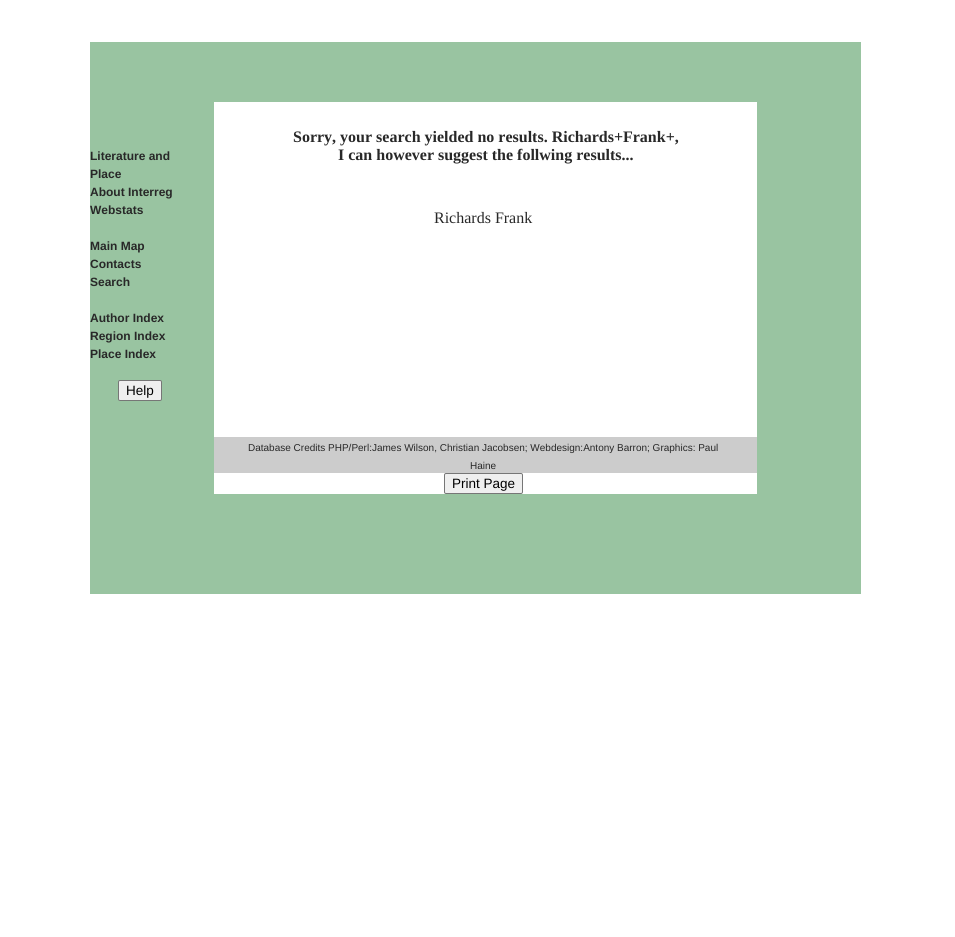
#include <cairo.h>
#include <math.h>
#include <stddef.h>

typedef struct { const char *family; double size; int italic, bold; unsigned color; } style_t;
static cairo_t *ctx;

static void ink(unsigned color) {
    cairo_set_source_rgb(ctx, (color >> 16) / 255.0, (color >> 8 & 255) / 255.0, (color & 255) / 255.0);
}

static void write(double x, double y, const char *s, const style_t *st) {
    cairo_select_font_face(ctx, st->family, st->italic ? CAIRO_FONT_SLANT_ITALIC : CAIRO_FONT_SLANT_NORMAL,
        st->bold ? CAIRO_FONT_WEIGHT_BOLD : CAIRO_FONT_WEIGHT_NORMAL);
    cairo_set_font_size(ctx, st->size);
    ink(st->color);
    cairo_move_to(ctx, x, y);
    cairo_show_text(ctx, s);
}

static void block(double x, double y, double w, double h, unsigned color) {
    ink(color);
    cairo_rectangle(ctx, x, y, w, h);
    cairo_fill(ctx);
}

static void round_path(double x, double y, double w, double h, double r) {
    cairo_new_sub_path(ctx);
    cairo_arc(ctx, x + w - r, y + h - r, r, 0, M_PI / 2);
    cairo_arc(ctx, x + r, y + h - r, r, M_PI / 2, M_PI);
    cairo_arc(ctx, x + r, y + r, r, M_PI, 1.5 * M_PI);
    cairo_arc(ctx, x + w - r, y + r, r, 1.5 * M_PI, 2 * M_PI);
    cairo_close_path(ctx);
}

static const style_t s1 = {"Liberation Serif", 16, 0, 1, 0x282828};
static const style_t s2 = {"Liberation Sans", 12, 0, 1, 0x282828};
static const style_t s3 = {"Liberation Sans", 13.5, 0, 0, 0x000000};
static const style_t s4 = {"Liberation Serif", 16, 0, 0, 0x282828};
static const style_t s5 = {"Liberation Sans", 10, 0, 0, 0x282828};

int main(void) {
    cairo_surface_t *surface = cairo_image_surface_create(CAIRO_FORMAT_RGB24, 955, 937);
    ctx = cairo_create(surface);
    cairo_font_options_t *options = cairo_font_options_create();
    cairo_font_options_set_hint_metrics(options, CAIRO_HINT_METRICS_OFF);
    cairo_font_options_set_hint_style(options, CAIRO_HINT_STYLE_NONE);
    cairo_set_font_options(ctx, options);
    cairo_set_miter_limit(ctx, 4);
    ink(0xffffff);
    cairo_paint(ctx);
    block(90, 42, 771, 552, 0x99c4a1);
    block(214, 102, 543, 89, 0xffffff);
    write(293, 142, "Sorry, your search yielded no results. Richards+Frank+,", &s1);
    write(338, 160, "I can however suggest the follwing results...", &s1);
    write(90, 160, "Literature and", &s2);
    write(90, 178, "Place", &s2);
    write(90, 196, "About Interreg", &s2);
    write(90, 214, "Webstats", &s2);
    write(90, 250, "Main Map", &s2);
    write(90, 268, "Contacts", &s2);
    write(90, 286, "Search", &s2);
    write(90, 322, "Author Index", &s2);
    write(90, 340, "Region Index", &s2);
    write(90, 358, "Place Index", &s2);
    ink(0xefefef);
    round_path(118.5, 380.5, 43, 20, 1.5);
    cairo_fill_preserve(ctx);
    ink(0x767676);
    cairo_set_line_width(ctx, 1);
    cairo_stroke(ctx);
    write(126, 395, "Help", &s3);
    block(214, 191, 543, 246, 0xffffff);
    write(434, 223, "Richards Frank", &s4);
    block(214, 437, 543, 36, 0xcccccc);
    write(248, 451, "Database Credits PHP/Perl:James Wilson, Christian Jacobsen; Webdesign:Antony Barron; Graphics: Paul", &s5);
    write(470, 469, "Haine", &s5);
    block(214, 473, 543, 21, 0xffffff);
    ink(0xefefef);
    round_path(444.5, 473.5, 78, 20, 1.5);
    cairo_fill_preserve(ctx);
    ink(0x767676);
    cairo_stroke(ctx);
    write(452, 488, "Print Page", &s3);
    cairo_surface_write_to_png(surface, "screenshot.png");
    cairo_font_options_destroy(options);
    cairo_destroy(ctx);
    cairo_surface_destroy(surface);
    return 0;
}
